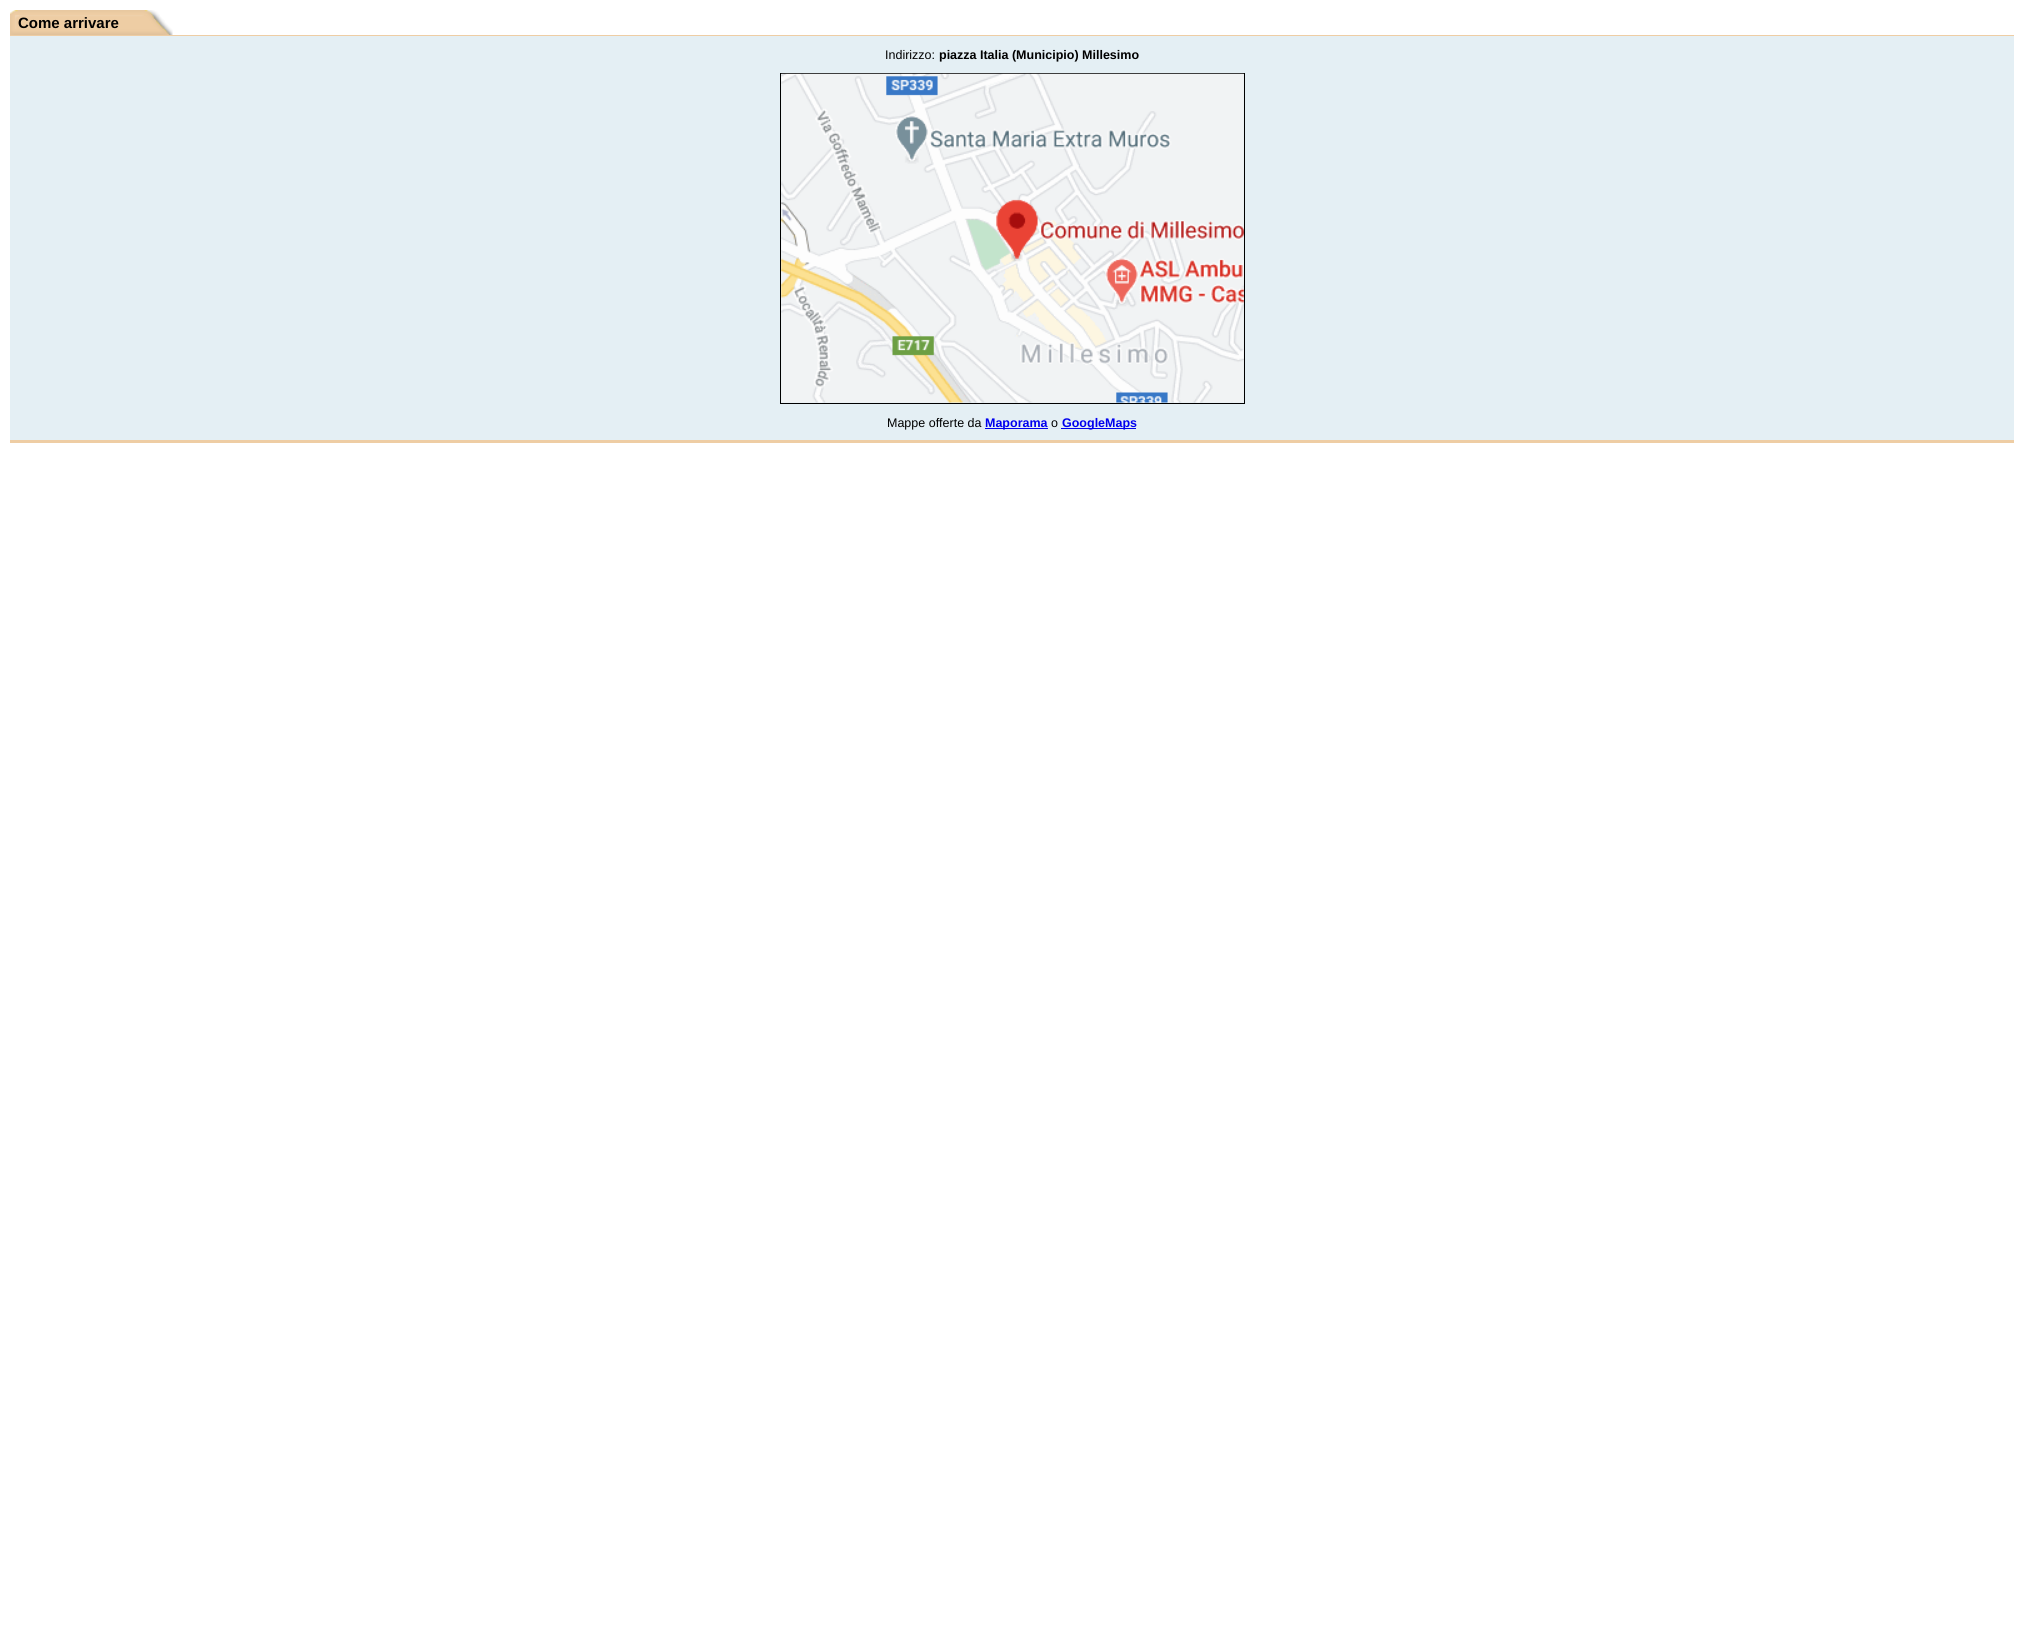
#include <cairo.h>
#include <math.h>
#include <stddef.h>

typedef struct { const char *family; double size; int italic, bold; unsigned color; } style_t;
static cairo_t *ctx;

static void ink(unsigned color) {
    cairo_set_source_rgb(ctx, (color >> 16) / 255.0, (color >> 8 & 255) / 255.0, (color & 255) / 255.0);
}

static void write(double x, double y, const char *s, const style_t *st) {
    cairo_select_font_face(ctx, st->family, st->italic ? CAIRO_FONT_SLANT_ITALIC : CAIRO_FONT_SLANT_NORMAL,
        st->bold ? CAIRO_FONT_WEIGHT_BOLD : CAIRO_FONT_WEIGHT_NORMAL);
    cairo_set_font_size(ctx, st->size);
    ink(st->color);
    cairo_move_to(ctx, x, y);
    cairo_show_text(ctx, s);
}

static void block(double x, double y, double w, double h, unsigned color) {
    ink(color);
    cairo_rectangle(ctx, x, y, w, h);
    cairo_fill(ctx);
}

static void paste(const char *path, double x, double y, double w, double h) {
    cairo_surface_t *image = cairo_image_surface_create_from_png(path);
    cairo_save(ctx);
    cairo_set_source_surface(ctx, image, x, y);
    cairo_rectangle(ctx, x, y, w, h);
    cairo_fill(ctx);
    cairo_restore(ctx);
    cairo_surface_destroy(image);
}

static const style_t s1 = {"Liberation Sans", 15, 0, 1, 0x000000};
static const style_t s2 = {"Liberation Sans", 12.5, 0, 0, 0x000000};
static const style_t s3 = {"Liberation Sans", 12.5, 0, 1, 0x000000};
static const style_t s4 = {"Liberation Sans", 12.5, 0, 1, 0x0000ee};

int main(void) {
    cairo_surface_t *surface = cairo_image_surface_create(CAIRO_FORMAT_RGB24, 2023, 1652);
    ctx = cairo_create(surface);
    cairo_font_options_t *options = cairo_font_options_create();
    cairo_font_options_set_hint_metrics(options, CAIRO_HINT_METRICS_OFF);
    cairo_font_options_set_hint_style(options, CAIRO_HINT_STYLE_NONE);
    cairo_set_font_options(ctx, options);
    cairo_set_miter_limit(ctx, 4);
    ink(0xffffff);
    cairo_paint(ctx);
    paste("pic1.png", 10, 10, 163, 25);
    write(18, 28, "Come arrivare", &s1);
    block(10, 35, 2004, 1, 0xeecda4);
    block(10, 36, 2004, 404, 0xe4eff4);
    write(885, 59, "Indirizzo:", &s2);
    write(939, 59, "piazza Italia (Municipio) Millesimo", &s3);
    cairo_rectangle(ctx, 780.5, 73.5, 464, 330);
    cairo_set_line_width(ctx, 1);
    cairo_stroke(ctx);
    paste("pic2.png", 781, 73, 463, 330);
    write(887, 427, "Mappe offerte da", &s2);
    block(985, 428, 63, 1, 0x0000ee);
    write(985, 427, "Maporama", &s4);
    write(1051, 427, "o", &s2);
    block(1061, 428, 75, 1, 0x0000ee);
    write(1062, 427, "GoogleMaps", &s4);
    block(10, 440, 2004, 3, 0xeecda4);
    cairo_surface_write_to_png(surface, "screenshot.png");
    cairo_font_options_destroy(options);
    cairo_destroy(ctx);
    cairo_surface_destroy(surface);
    return 0;
}
